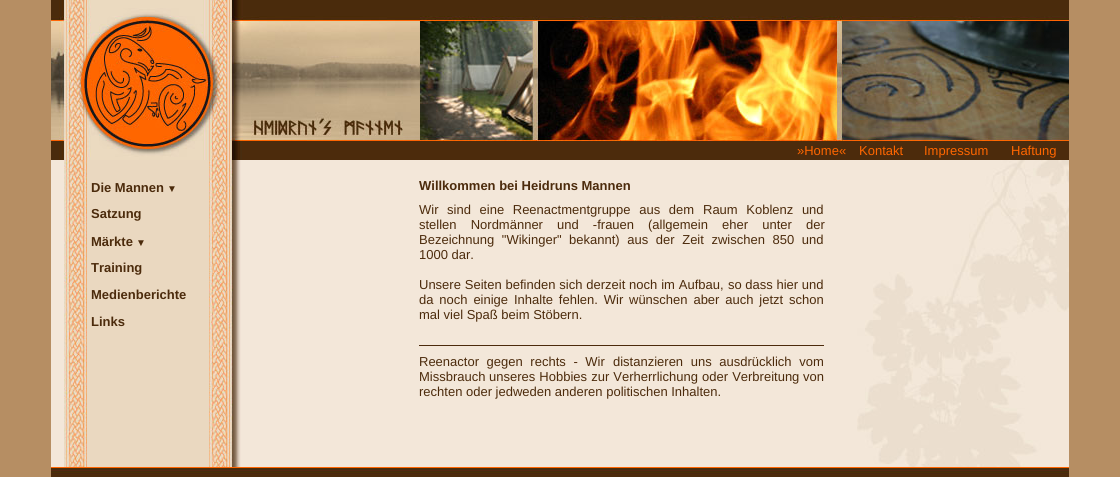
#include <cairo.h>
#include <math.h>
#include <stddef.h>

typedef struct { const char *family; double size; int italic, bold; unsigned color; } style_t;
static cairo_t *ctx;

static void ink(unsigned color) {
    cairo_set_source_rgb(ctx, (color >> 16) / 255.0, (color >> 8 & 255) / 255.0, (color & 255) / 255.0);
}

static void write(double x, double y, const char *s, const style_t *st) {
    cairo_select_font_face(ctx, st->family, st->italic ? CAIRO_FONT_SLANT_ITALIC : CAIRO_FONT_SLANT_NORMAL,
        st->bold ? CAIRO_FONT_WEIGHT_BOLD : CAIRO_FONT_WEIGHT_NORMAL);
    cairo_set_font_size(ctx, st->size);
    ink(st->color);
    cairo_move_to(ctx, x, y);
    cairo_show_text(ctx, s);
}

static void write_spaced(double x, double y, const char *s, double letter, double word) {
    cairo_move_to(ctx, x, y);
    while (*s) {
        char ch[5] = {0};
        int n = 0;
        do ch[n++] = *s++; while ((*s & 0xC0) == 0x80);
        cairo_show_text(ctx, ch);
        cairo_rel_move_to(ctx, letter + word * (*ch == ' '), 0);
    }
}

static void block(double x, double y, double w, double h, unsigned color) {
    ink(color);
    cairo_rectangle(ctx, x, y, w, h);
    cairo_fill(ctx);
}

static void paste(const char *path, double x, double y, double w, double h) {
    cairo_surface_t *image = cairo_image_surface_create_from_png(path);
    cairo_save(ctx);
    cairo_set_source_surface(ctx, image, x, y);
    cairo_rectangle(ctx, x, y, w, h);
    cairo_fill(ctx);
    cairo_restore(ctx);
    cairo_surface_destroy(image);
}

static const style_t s1 = {"Liberation Sans", 13, 0, 0, 0xff6600};
static const style_t s2 = {"Liberation Sans", 13, 0, 1, 0x4c2b0c};
static const style_t s3 = {"Liberation Sans", 10, 0, 0, 0x4c2b0c};
static const style_t s4 = {"Liberation Sans", 13, 0, 0, 0x4c2b0c};

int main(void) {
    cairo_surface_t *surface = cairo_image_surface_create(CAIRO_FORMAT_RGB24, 1120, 477);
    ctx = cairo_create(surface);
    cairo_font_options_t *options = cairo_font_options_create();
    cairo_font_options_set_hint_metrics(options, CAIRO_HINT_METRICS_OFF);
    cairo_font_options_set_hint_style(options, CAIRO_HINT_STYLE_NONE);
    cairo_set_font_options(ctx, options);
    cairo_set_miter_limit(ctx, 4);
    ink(0xb68e63);
    cairo_paint(ctx);
    paste("pic1.png", 51, 0, 1018, 141);
    paste("pic2.png", 420, 16, 649, 125);
    paste("pic3.png", 51, 141, 191, 19);
    block(242, 141, 827, 19, 0x4c2b0c);
    write(797, 155, "»Home«", &s1);
    write(859, 155, "Kontakt", &s1);
    write(924, 155, "Impressum", &s1);
    write(1011, 155, "Haftung", &s1);
    block(51, 160, 13, 307, 0xf3e7d9);
    paste("pic4.png", 64, 160, 23, 307);
    block(87, 160, 122, 307, 0xead8c0);
    write(91, 192, "Die Mannen", &s2);
    write(167, 192, "▼", &s3);
    write(91, 218, "Satzung", &s2);
    write(91, 246, "Märkte", &s2);
    write(136, 246, "▼", &s3);
    write(91, 272, "Training", &s2);
    write(91, 299, "Medienberichte", &s2);
    write(91, 326, "Links", &s2);
    paste("pic5.png", 209, 160, 32, 307);
    block(241, 160, 616, 307, 0xf3e7d9);
    paste("pic6.png", 857, 160, 212, 307);
    write(419, 190, "Willkommen bei Heidruns Mannen", &s2);
    cairo_select_font_face(ctx, "Liberation Sans", CAIRO_FONT_SLANT_NORMAL, CAIRO_FONT_WEIGHT_NORMAL);
    write_spaced(419, 214, "Wir sind eine Reenactmentgruppe aus dem", 0, 5);
    write_spaced(703, 214, "Raum Koblenz und", 0, 5);
    write_spaced(419, 229, "stellen Nordmänner und -frauen", 0, 10.5);
    write_spaced(648, 229, "(allgemein eher unter der", 0, 10.5);
    write_spaced(419, 244, "Bezeichnung \"Wikinger\"", 0, 4);
    write_spaced(569, 244, "bekannt) aus der Zeit zwischen 850 und", 0, 4);
    write(419, 259, "1000 dar.", &s4);
    write_spaced(419, 289, "Unsere Seiten befinden sich derzeit noch im Aufbau,", 0, 0.25);
    write(728, 289, "so dass hier und", &s4);
    write_spaced(419, 304, "da noch einige Inhalte fehlen. Wir", 0, 2.25);
    write_spaced(629, 304, "wünschen aber auch jetzt schon", 0, 2.25);
    write(419, 319, "mal viel Spaß beim Stöbern.", &s4);
    block(419, 345, 405, 1, 0x4c2b0c);
    write_spaced(419, 366, "Reenactor gegen rechts - Wir", 0, 4);
    write_spaced(613, 366, "distanzieren uns ausdrücklich vom", 0, 4);
    write(419, 381, "Missbrauch", &s4);
    write_spaced(489, 381, "unseres Hobbies zur Verherrlichung oder Verbreitung", 0, 0.5);
    write(803, 381, "von", &s4);
    write(419, 396, "rechten oder jedweden anderen politischen Inhalten.", &s4);
    paste("pic7.png", 51, 467, 1018, 10);
    cairo_surface_write_to_png(surface, "screenshot.png");
    cairo_font_options_destroy(options);
    cairo_destroy(ctx);
    cairo_surface_destroy(surface);
    return 0;
}
